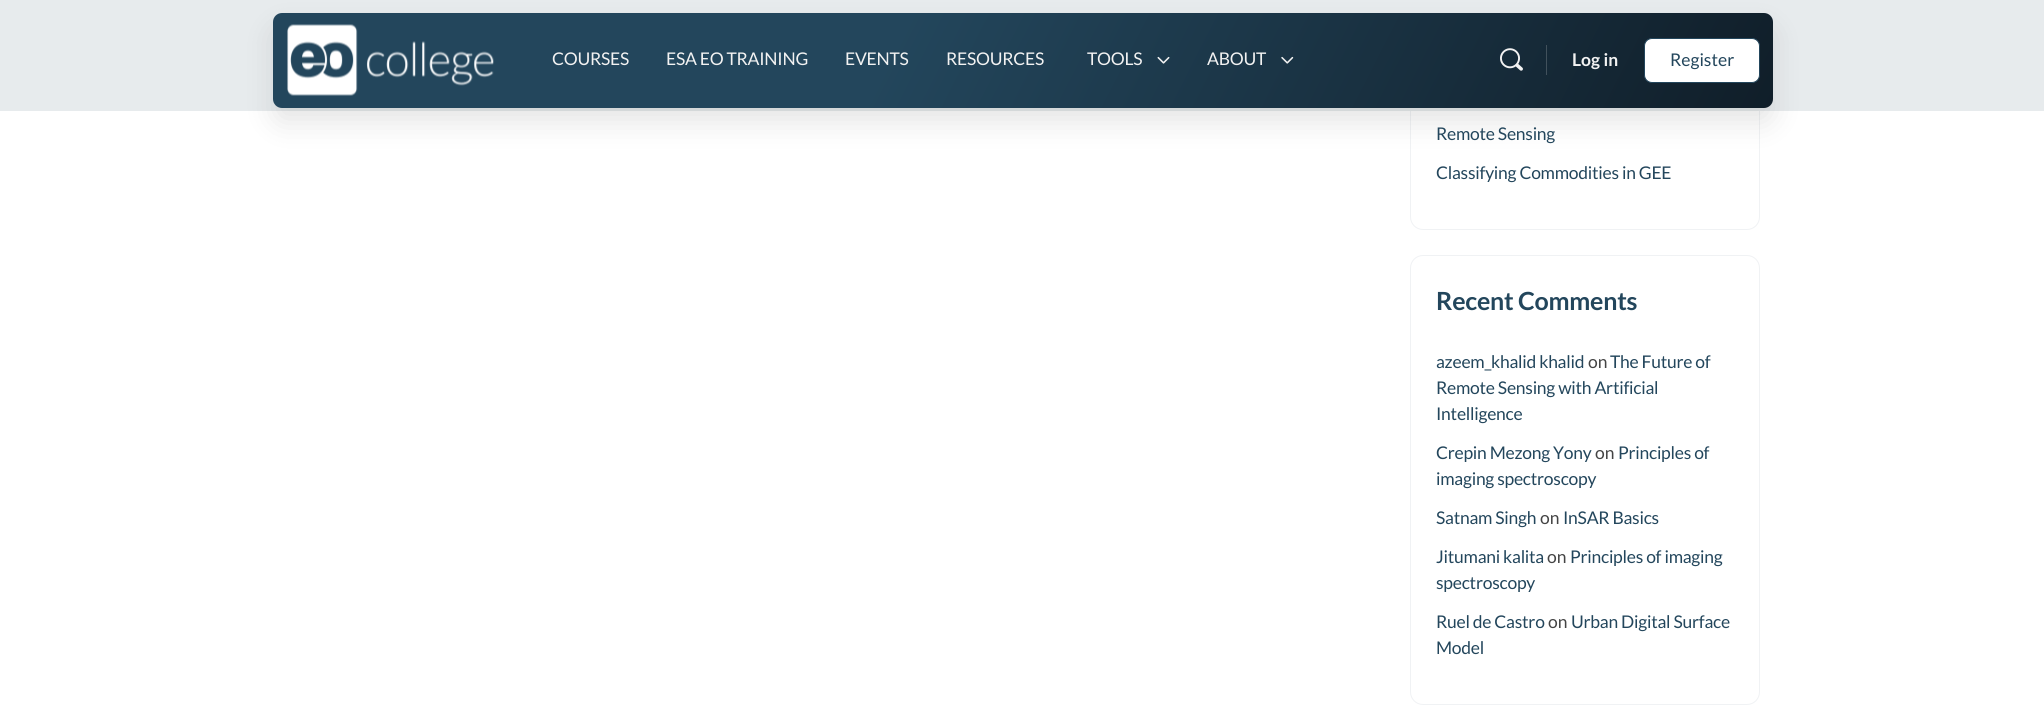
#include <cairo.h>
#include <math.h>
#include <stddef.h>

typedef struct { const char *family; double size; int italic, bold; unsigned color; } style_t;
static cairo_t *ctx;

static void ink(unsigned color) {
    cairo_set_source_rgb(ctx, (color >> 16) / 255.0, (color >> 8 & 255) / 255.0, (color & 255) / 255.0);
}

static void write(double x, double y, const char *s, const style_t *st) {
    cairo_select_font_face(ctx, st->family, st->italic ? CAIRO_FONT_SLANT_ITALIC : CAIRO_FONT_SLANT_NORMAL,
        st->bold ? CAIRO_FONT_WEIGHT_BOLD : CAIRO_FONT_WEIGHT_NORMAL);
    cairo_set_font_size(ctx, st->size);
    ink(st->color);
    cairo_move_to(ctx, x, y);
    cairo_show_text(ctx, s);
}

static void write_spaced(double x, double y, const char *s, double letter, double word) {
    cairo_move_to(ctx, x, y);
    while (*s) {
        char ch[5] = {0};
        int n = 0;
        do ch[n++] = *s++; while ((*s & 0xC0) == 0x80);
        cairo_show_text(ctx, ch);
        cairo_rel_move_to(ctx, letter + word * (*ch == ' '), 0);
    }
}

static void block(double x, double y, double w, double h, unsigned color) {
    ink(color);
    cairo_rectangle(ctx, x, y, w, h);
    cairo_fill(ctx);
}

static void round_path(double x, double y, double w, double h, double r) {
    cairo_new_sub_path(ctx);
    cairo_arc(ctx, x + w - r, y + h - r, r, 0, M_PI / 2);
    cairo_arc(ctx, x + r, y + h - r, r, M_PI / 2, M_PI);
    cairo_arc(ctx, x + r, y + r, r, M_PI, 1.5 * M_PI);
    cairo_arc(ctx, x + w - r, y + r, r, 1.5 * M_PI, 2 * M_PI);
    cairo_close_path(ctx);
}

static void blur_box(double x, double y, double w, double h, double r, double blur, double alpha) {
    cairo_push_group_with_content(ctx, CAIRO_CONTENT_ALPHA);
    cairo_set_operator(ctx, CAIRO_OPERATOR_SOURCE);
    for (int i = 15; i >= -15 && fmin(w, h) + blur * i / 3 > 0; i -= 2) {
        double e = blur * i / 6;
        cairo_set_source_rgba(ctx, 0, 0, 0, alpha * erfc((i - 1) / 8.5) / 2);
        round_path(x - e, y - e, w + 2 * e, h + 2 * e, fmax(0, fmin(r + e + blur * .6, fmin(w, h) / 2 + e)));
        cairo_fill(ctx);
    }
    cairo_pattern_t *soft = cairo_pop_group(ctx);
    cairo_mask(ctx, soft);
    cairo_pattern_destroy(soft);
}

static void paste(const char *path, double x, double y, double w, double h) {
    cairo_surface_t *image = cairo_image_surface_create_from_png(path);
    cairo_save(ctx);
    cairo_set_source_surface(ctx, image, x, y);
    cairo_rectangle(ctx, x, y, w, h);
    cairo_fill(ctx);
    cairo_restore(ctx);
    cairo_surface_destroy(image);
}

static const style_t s1 = {"Lato", 17.5, 0, 1, 0xf2f2f2};
static const style_t s2 = {"Lato", 17.5, 0, 0, 0x23465c};
static const style_t s3 = {"Lato", 17.5, 0, 0, 0x444444};

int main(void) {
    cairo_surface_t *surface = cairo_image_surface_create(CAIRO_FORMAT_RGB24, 2044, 711);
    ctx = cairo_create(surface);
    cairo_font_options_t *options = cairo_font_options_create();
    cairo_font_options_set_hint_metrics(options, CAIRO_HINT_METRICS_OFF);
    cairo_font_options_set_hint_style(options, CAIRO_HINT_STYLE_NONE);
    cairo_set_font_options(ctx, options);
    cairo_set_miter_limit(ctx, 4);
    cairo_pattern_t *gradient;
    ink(0xffffff);
    cairo_paint(ctx);
    round_path(1410.5, -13.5, 349, 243, 12.5);
    ink(0xf0f2f4);
    cairo_set_line_width(ctx, 1);
    cairo_stroke(ctx);
    block(0, 0, 2044, 111, 0xe7ebed);
    ink(0x000000);
    blur_box(273, 28, 1500, 95, 9, 14, 0.1);
    gradient = cairo_pattern_create_linear(408, -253, 1637, 373);
    cairo_pattern_add_color_stop_rgba(gradient, 0.41, 0.137, 0.275, 0.361, 1);
    cairo_pattern_add_color_stop_rgba(gradient, 1, 0.063, 0.118, 0.161, 1);
    cairo_set_source(ctx, gradient);
    cairo_pattern_destroy(gradient);
    round_path(273, 13, 1500, 95, 9);
    cairo_fill(ctx);
    paste("pic1.png", 287, 24, 207, 72);
    cairo_select_font_face(ctx, "Lato", CAIRO_FONT_SLANT_NORMAL, CAIRO_FONT_WEIGHT_NORMAL);
    cairo_set_font_size(ctx, 17.5);
    ink(0xf2f2f2);
    write_spaced(552, 65, "COURSES", -0.25, 0);
    write_spaced(666, 65, "ESA EO TRAINING", -0.25, 0);
    write_spaced(845, 65, "EVENTS", -0.25, 0);
    write_spaced(946, 65, "RESOURCES", -0.25, 0);
    write_spaced(1087, 65, "TOOLS", -0.25, 0);
    paste("pic2.png", 1157, 56, 13, 8);
    write_spaced(1207, 65, "ABOUT", -0.25, 0);
    paste("pic3.png", 1281, 56, 13, 8);
    paste("pic4.png", 1500, 48, 23, 23);
    block(1546, 45, 1, 30, 0x41515c);
    write(1572, 66, "Log in", &s1);
    ink(0xffffff);
    round_path(1644.5, 38.5, 115, 44, 7.5);
    cairo_fill_preserve(ctx);
    ink(0x23465c);
    cairo_stroke(ctx);
    write(1670, 66, "Register", &s2);
    write_spaced(1436, 140, "Remote Sensing", -0.25, 0);
    write_spaced(1436, 179, "Classifying Commodities in GEE", -0.25, 0);
    round_path(1410.5, 255.5, 349, 449, 12.5);
    ink(0xf0f2f4);
    cairo_stroke(ctx);
    cairo_select_font_face(ctx, "Lato", CAIRO_FONT_SLANT_NORMAL, CAIRO_FONT_WEIGHT_BOLD);
    cairo_set_font_size(ctx, 25);
    ink(0x23465c);
    write_spaced(1436, 310, "Recent Comments", -0.25, 0);
    cairo_select_font_face(ctx, "Lato", CAIRO_FONT_SLANT_NORMAL, CAIRO_FONT_WEIGHT_NORMAL);
    cairo_set_font_size(ctx, 17.5);
    write_spaced(1436, 368, "azeem_khalid khalid", -0.25, 0);
    write(1588, 368, "on", &s3);
    ink(0x23465c);
    write_spaced(1610, 368, "The Future of", -0.25, 0);
    write_spaced(1436, 394, "Remote Sensing with Artificial", -0.25, 0);
    write_spaced(1436, 420, "Intelligence", -0.25, 0);
    write_spaced(1436, 459, "Crepin Mezong Yony", -0.25, 0);
    write(1595, 459, "on", &s3);
    ink(0x23465c);
    write_spaced(1618, 459, "Principles of", -0.25, 0);
    write_spaced(1436, 485, "imaging spectroscopy", -0.25, 0);
    write_spaced(1436, 524, "Satnam Singh", -0.25, 0);
    write(1540, 524, "on", &s3);
    ink(0x23465c);
    write_spaced(1563, 524, "InSAR Basics", -0.25, 0);
    write_spaced(1436, 563, "Jitumani kalita", -0.25, 0);
    write(1547, 563, "on", &s3);
    ink(0x23465c);
    write_spaced(1570, 563, "Principles of imaging", -0.25, 0);
    write_spaced(1436, 589, "spectroscopy", -0.25, 0);
    write_spaced(1436, 628, "Ruel de Castro", -0.25, 0);
    write(1548, 628, "on", &s3);
    ink(0x23465c);
    write_spaced(1571, 628, "Urban Digital Surface", -0.25, 0);
    write_spaced(1436, 654, "Model", -0.25, 0);
    cairo_surface_write_to_png(surface, "screenshot.png");
    cairo_font_options_destroy(options);
    cairo_destroy(ctx);
    cairo_surface_destroy(surface);
    return 0;
}
